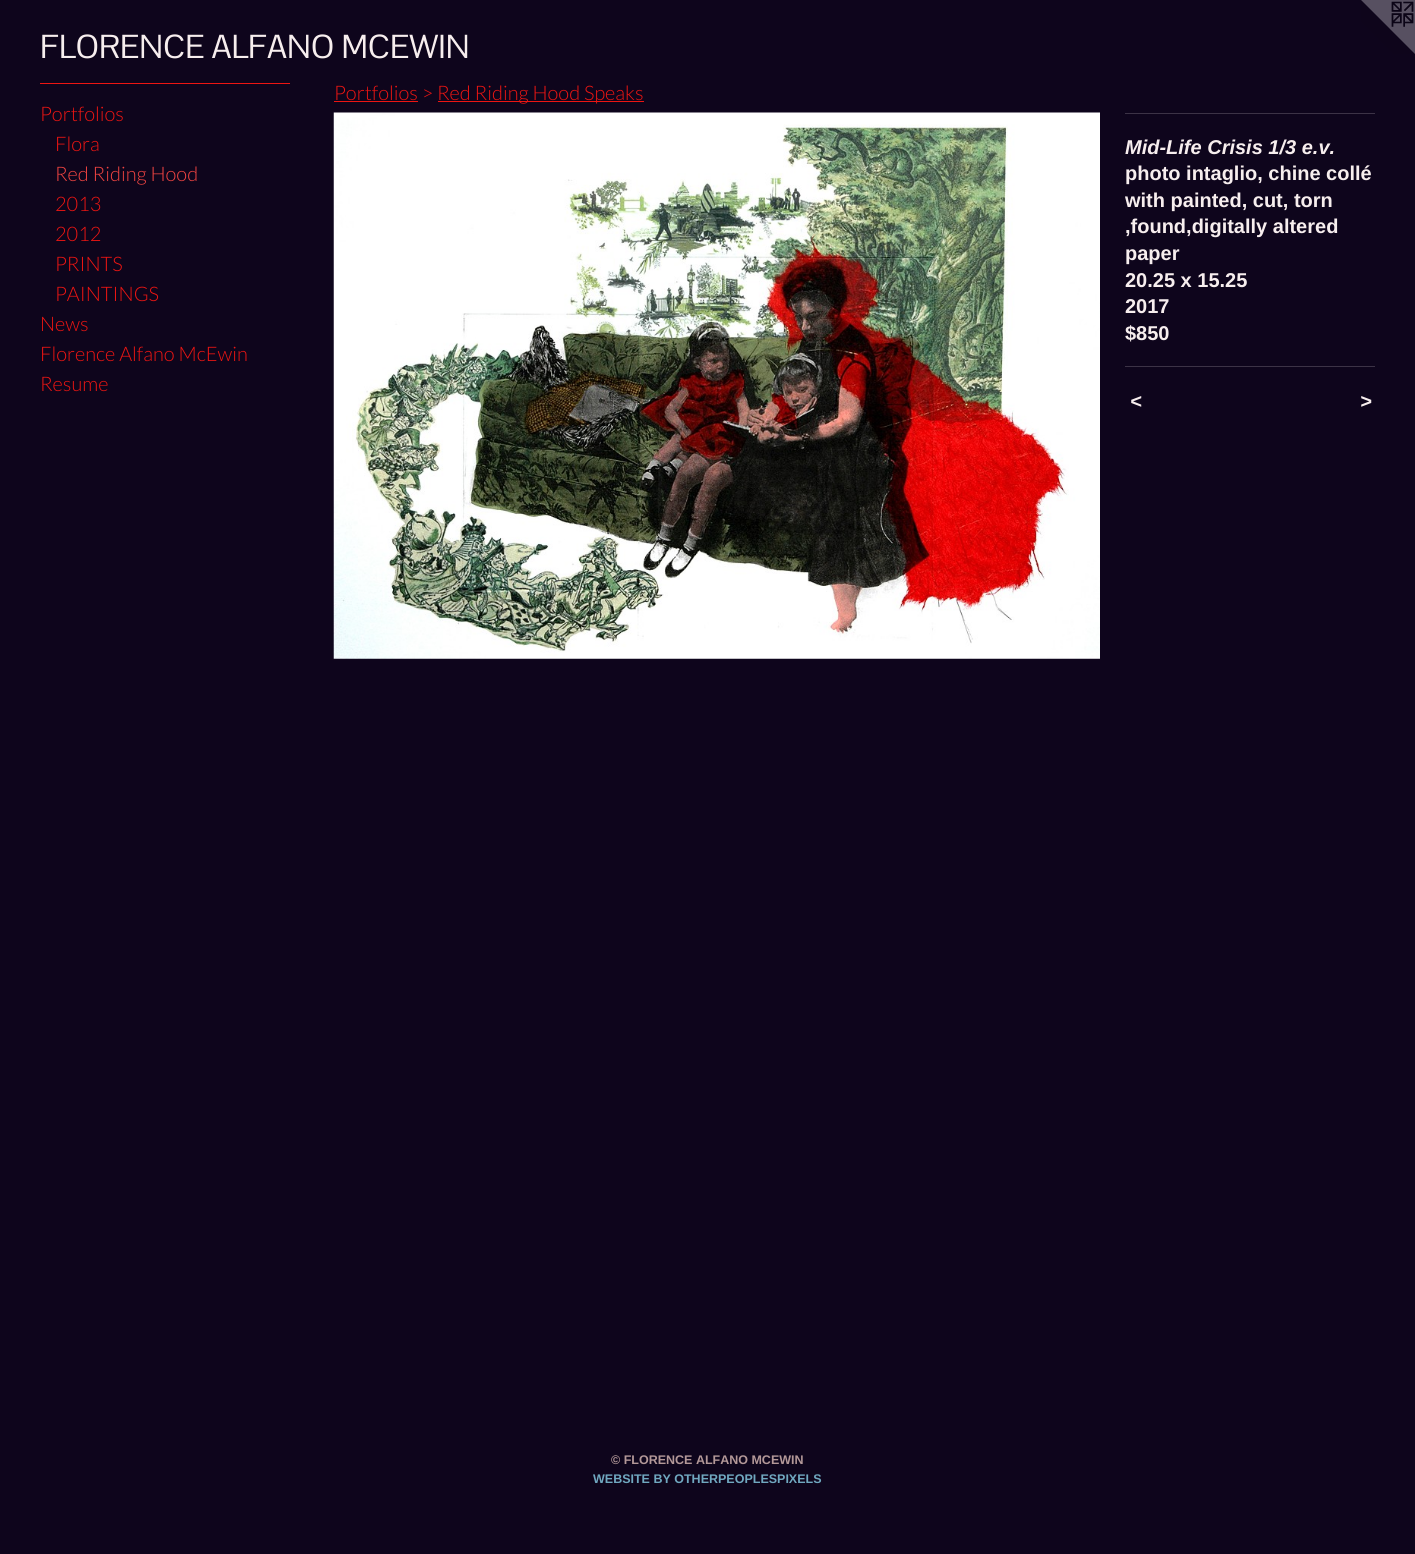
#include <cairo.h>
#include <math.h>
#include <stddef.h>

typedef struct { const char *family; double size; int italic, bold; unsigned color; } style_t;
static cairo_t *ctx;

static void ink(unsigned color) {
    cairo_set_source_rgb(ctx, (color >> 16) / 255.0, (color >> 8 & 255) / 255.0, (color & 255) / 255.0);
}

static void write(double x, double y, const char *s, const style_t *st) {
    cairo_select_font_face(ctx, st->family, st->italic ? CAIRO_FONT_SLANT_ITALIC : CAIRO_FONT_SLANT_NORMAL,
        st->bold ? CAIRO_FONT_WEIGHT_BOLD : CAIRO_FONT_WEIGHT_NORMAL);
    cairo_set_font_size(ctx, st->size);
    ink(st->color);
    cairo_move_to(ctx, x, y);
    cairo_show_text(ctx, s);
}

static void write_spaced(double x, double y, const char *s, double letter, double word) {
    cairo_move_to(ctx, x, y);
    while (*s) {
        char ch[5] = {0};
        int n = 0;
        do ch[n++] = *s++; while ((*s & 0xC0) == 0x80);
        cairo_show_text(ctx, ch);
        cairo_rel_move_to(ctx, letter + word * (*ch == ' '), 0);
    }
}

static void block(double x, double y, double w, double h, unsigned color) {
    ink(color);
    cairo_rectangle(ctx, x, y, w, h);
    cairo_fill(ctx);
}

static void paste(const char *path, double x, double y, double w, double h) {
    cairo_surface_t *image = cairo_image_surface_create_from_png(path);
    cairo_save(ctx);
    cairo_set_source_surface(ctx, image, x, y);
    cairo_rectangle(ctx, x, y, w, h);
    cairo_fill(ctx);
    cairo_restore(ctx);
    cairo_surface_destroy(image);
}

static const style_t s1 = {"Pontano Sans", 32.5, 0, 0, 0xf7eeee};
static const style_t s2 = {"Lato Light", 20, 0, 0, 0xed1512};
static const style_t s3 = {"Lato Light", 20, 0, 0, 0xf14441};
static const style_t s4 = {"Liberation Sans", 20, 1, 1, 0xf7eeee};
static const style_t s5 = {"Liberation Sans", 20, 0, 1, 0xf7eeee};
static const style_t s6 = {"Liberation Sans", 12.5, 0, 1, 0xb39898};
static const style_t s7 = {"Liberation Sans", 12.5, 0, 1, 0x70a8c0};

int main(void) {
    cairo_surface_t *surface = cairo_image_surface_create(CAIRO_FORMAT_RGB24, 1415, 1554);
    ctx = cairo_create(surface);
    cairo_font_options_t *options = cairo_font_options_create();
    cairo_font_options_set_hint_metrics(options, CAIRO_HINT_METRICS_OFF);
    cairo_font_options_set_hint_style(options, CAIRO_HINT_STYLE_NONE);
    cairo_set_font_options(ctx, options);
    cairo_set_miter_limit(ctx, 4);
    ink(0x0e051c);
    cairo_paint(ctx);
    write(40, 58, "FLORENCE ALFANO MCEWIN", &s1);
    paste("pic1.png", 1361, 0, 54, 54);
    block(40, 83, 250, 1, 0xed1512);
    write(40, 121, "Portfolios", &s2);
    write(55, 151, "Flora", &s2);
    write(55, 181, "Red Riding Hood", &s3);
    write(55, 211, "2013", &s2);
    write(55, 241, "2012", &s2);
    write(55, 271, "PRINTS", &s2);
    write(55, 301, "PAINTINGS", &s2);
    write(40, 331, "News", &s2);
    write(40, 361, "Florence Alfano McEwin", &s2);
    write(40, 391, "Resume", &s2);
    write(334, 100, "Portfolios >", &s2);
    block(334, 101, 84, 1, 0xed1512);
    block(438, 101, 206, 1, 0xed1512);
    write(437, 100, "Red Riding Hood Speaks", &s2);
    paste("pic2.png", 333, 112, 767, 547);
    block(1125, 113, 250, 1, 0x3c3346);
    write(1125, 154, "Mid-Life Crisis 1/3 e.v.", &s4);
    write(1125, 180, "photo intaglio, chine collé", &s5);
    write(1125, 207, "with painted, cut, torn", &s5);
    write(1125, 233, ",found,digitally altered", &s5);
    write(1125, 260, "paper", &s5);
    write(1125, 287, "20.25 x 15.25", &s5);
    write(1125, 313, "2017", &s5);
    write(1125, 340, "$850", &s5);
    block(1125, 366, 250, 1, 0x3c3346);
    cairo_select_font_face(ctx, "Liberation Sans", CAIRO_FONT_SLANT_ITALIC, CAIRO_FONT_WEIGHT_BOLD);
    ink(0xf7eeee);
    write_spaced(1130, 408, "<", 1, 0);
    write_spaced(1360, 408, ">", 1, 0);
    write(611, 1464, "© FLORENCE ALFANO MCEWIN", &s6);
    write(593, 1483, "WEBSITE BY OTHERPEOPLESPIXELS", &s7);
    cairo_surface_write_to_png(surface, "screenshot.png");
    cairo_font_options_destroy(options);
    cairo_destroy(ctx);
    cairo_surface_destroy(surface);
    return 0;
}
